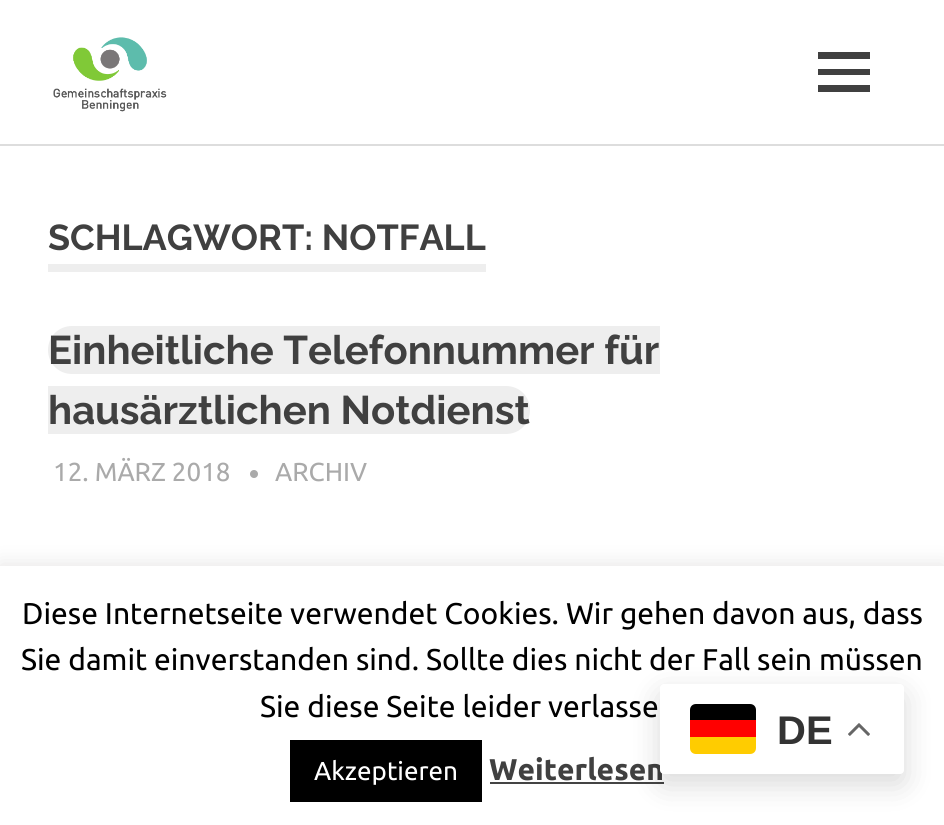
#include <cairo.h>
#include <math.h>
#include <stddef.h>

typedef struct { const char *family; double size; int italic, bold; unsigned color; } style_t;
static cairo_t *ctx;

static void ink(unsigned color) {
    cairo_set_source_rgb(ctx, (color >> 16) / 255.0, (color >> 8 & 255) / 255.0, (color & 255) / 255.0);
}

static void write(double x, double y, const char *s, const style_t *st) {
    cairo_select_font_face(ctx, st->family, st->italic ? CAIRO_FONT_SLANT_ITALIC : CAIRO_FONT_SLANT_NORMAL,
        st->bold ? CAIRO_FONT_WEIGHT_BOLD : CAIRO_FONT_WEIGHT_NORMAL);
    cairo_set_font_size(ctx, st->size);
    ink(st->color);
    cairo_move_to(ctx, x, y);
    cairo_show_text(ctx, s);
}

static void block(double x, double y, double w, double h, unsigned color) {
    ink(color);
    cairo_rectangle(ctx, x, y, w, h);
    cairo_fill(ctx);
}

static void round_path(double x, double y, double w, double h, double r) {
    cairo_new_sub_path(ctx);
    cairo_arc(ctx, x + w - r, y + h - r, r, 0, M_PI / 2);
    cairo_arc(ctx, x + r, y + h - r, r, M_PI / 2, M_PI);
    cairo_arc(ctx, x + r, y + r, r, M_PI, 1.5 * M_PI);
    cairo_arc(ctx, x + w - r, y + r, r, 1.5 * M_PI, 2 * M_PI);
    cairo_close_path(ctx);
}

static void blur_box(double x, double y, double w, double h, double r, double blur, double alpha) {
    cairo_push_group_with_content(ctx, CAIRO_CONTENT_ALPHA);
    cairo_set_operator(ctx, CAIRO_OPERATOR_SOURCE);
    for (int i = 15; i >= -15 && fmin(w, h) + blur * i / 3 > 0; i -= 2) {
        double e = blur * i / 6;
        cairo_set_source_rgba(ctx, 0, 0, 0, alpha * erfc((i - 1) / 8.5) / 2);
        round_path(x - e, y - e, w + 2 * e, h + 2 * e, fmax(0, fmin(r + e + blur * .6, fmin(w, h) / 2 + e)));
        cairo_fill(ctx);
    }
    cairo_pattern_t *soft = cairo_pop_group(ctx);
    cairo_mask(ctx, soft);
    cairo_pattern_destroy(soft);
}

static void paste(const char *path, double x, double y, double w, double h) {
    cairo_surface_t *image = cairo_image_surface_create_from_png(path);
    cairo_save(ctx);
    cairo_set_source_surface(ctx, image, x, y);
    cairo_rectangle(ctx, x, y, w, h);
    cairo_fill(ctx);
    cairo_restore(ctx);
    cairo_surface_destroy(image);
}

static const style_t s1 = {"Raleway Thin", 36, 0, 0, 0x404040};
static const style_t s2 = {"Raleway Thin", 40, 0, 0, 0x404040};
static const style_t s3 = {"Ubuntu", 26, 0, 0, 0xaaaaaa};
static const style_t s4 = {"Ubuntu", 30, 0, 0, 0x000000};
static const style_t s5 = {"Ubuntu", 26, 0, 0, 0xffffff};
static const style_t s6 = {"Ubuntu", 30, 0, 1, 0x404040};
static const style_t s7 = {"Liberation Sans", 40, 0, 1, 0x333333};

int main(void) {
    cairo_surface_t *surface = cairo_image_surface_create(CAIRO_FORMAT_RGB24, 944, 825);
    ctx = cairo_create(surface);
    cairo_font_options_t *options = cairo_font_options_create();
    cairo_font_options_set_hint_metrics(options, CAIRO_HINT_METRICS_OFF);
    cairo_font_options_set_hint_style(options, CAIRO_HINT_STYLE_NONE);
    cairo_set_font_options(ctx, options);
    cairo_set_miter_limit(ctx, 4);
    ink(0xffffff);
    cairo_paint(ctx);
    block(0, 144, 944, 2, 0xdddddd);
    paste("pic1.png", 53, 37, 114, 75);
    ink(0x404040);
    cairo_new_path(ctx);
    cairo_move_to(ctx, 818, 92);
    cairo_line_to(ctx, 818, 85);
    cairo_line_to(ctx, 870, 85);
    cairo_line_to(ctx, 870, 92);
    cairo_close_path(ctx);
    cairo_move_to(ctx, 818, 52);
    cairo_line_to(ctx, 870, 52);
    cairo_line_to(ctx, 870, 59);
    cairo_line_to(ctx, 818, 59);
    cairo_close_path(ctx);
    cairo_move_to(ctx, 818, 75);
    cairo_line_to(ctx, 818, 69);
    cairo_line_to(ctx, 870, 69);
    cairo_line_to(ctx, 870, 75);
    cairo_close_path(ctx);
    cairo_fill(ctx);
    block(48, 264, 438, 8, 0xeeeeee);
    write(48, 250, "SCHLAGWORT: NOTFALL", &s1);
    ink(0xeeeeee);
    cairo_new_path(ctx);
    cairo_move_to(ctx, 72, 326);
    cairo_line_to(ctx, 660, 326);
    cairo_line_to(ctx, 660, 374);
    cairo_line_to(ctx, 72, 374);
    cairo_curve_to(ctx, 58.5, 374, 48, 363.5, 48, 350);
    cairo_curve_to(ctx, 48, 336.5, 58.5, 326, 72, 326);
    cairo_close_path(ctx);
    cairo_fill(ctx);
    write(48, 364, "Einheitliche Telefonnummer für", &s2);
    ink(0xeeeeee);
    cairo_new_path(ctx);
    cairo_move_to(ctx, 48, 386);
    cairo_line_to(ctx, 506, 386);
    cairo_curve_to(ctx, 519.5, 386, 530, 396.5, 530, 410);
    cairo_curve_to(ctx, 530, 423.5, 519.5, 434, 506, 434);
    cairo_line_to(ctx, 48, 434);
    cairo_close_path(ctx);
    cairo_fill(ctx);
    write(48, 424, "hausärztlichen Notdienst", &s2);
    write(53, 481, "12. MÄRZ 2018", &s3);
    paste("pic2.png", 250, 470, 8, 8);
    write(275, 481, "ARCHIV", &s3);
    ink(0xacabab);
    blur_box(0, 564, 944, 260, 0, 10, 0.3);
    block(0, 566, 944, 259, 0xffffff);
    write(22, 624, "Diese Internetseite verwendet Cookies. Wir gehen davon aus, dass", &s4);
    write(21, 670, "Sie damit einverstanden sind. Sollte dies nicht der Fall sein müssen", &s4);
    write(260, 717, "Sie diese Seite leider verlasse", &s4);
    block(290, 740, 192, 62, 0x000000);
    write(314, 780, "Akzeptieren", &s5);
    write(489, 780, "Weiterlesen", &s6);
    block(490, 782, 174, 2, 0x444444);
    ink(0x000000);
    blur_box(660, 694, 244, 90, 4, 15, 0.15);
    ink(0xffffff);
    round_path(660, 684, 244, 90, 4);
    cairo_fill(ctx);
    ink(0xffcc00);
    cairo_new_path(ctx);
    cairo_move_to(ctx, 690, 737);
    cairo_line_to(ctx, 756, 737);
    cairo_line_to(ctx, 756, 748);
    cairo_curve_to(ctx, 756, 751.5, 753.5, 754, 750, 754);
    cairo_line_to(ctx, 696, 754);
    cairo_curve_to(ctx, 692.5, 754, 690, 751.5, 690, 748);
    cairo_close_path(ctx);
    cairo_fill(ctx);
    ink(0x000000);
    cairo_new_path(ctx);
    cairo_move_to(ctx, 696, 704);
    cairo_line_to(ctx, 750, 704);
    cairo_curve_to(ctx, 753.5, 704, 756, 706.5, 756, 710);
    cairo_line_to(ctx, 756, 720);
    cairo_line_to(ctx, 690, 720);
    cairo_line_to(ctx, 690, 710);
    cairo_curve_to(ctx, 690, 706.5, 692.5, 704, 696, 704);
    cairo_close_path(ctx);
    cairo_fill(ctx);
    block(690, 720, 66, 17, 0xff0000);
    write(777, 744, "DE", &s7);
    paste("pic3.png", 848, 723, 22, 13);
    cairo_surface_write_to_png(surface, "screenshot.png");
    cairo_font_options_destroy(options);
    cairo_destroy(ctx);
    cairo_surface_destroy(surface);
    return 0;
}
